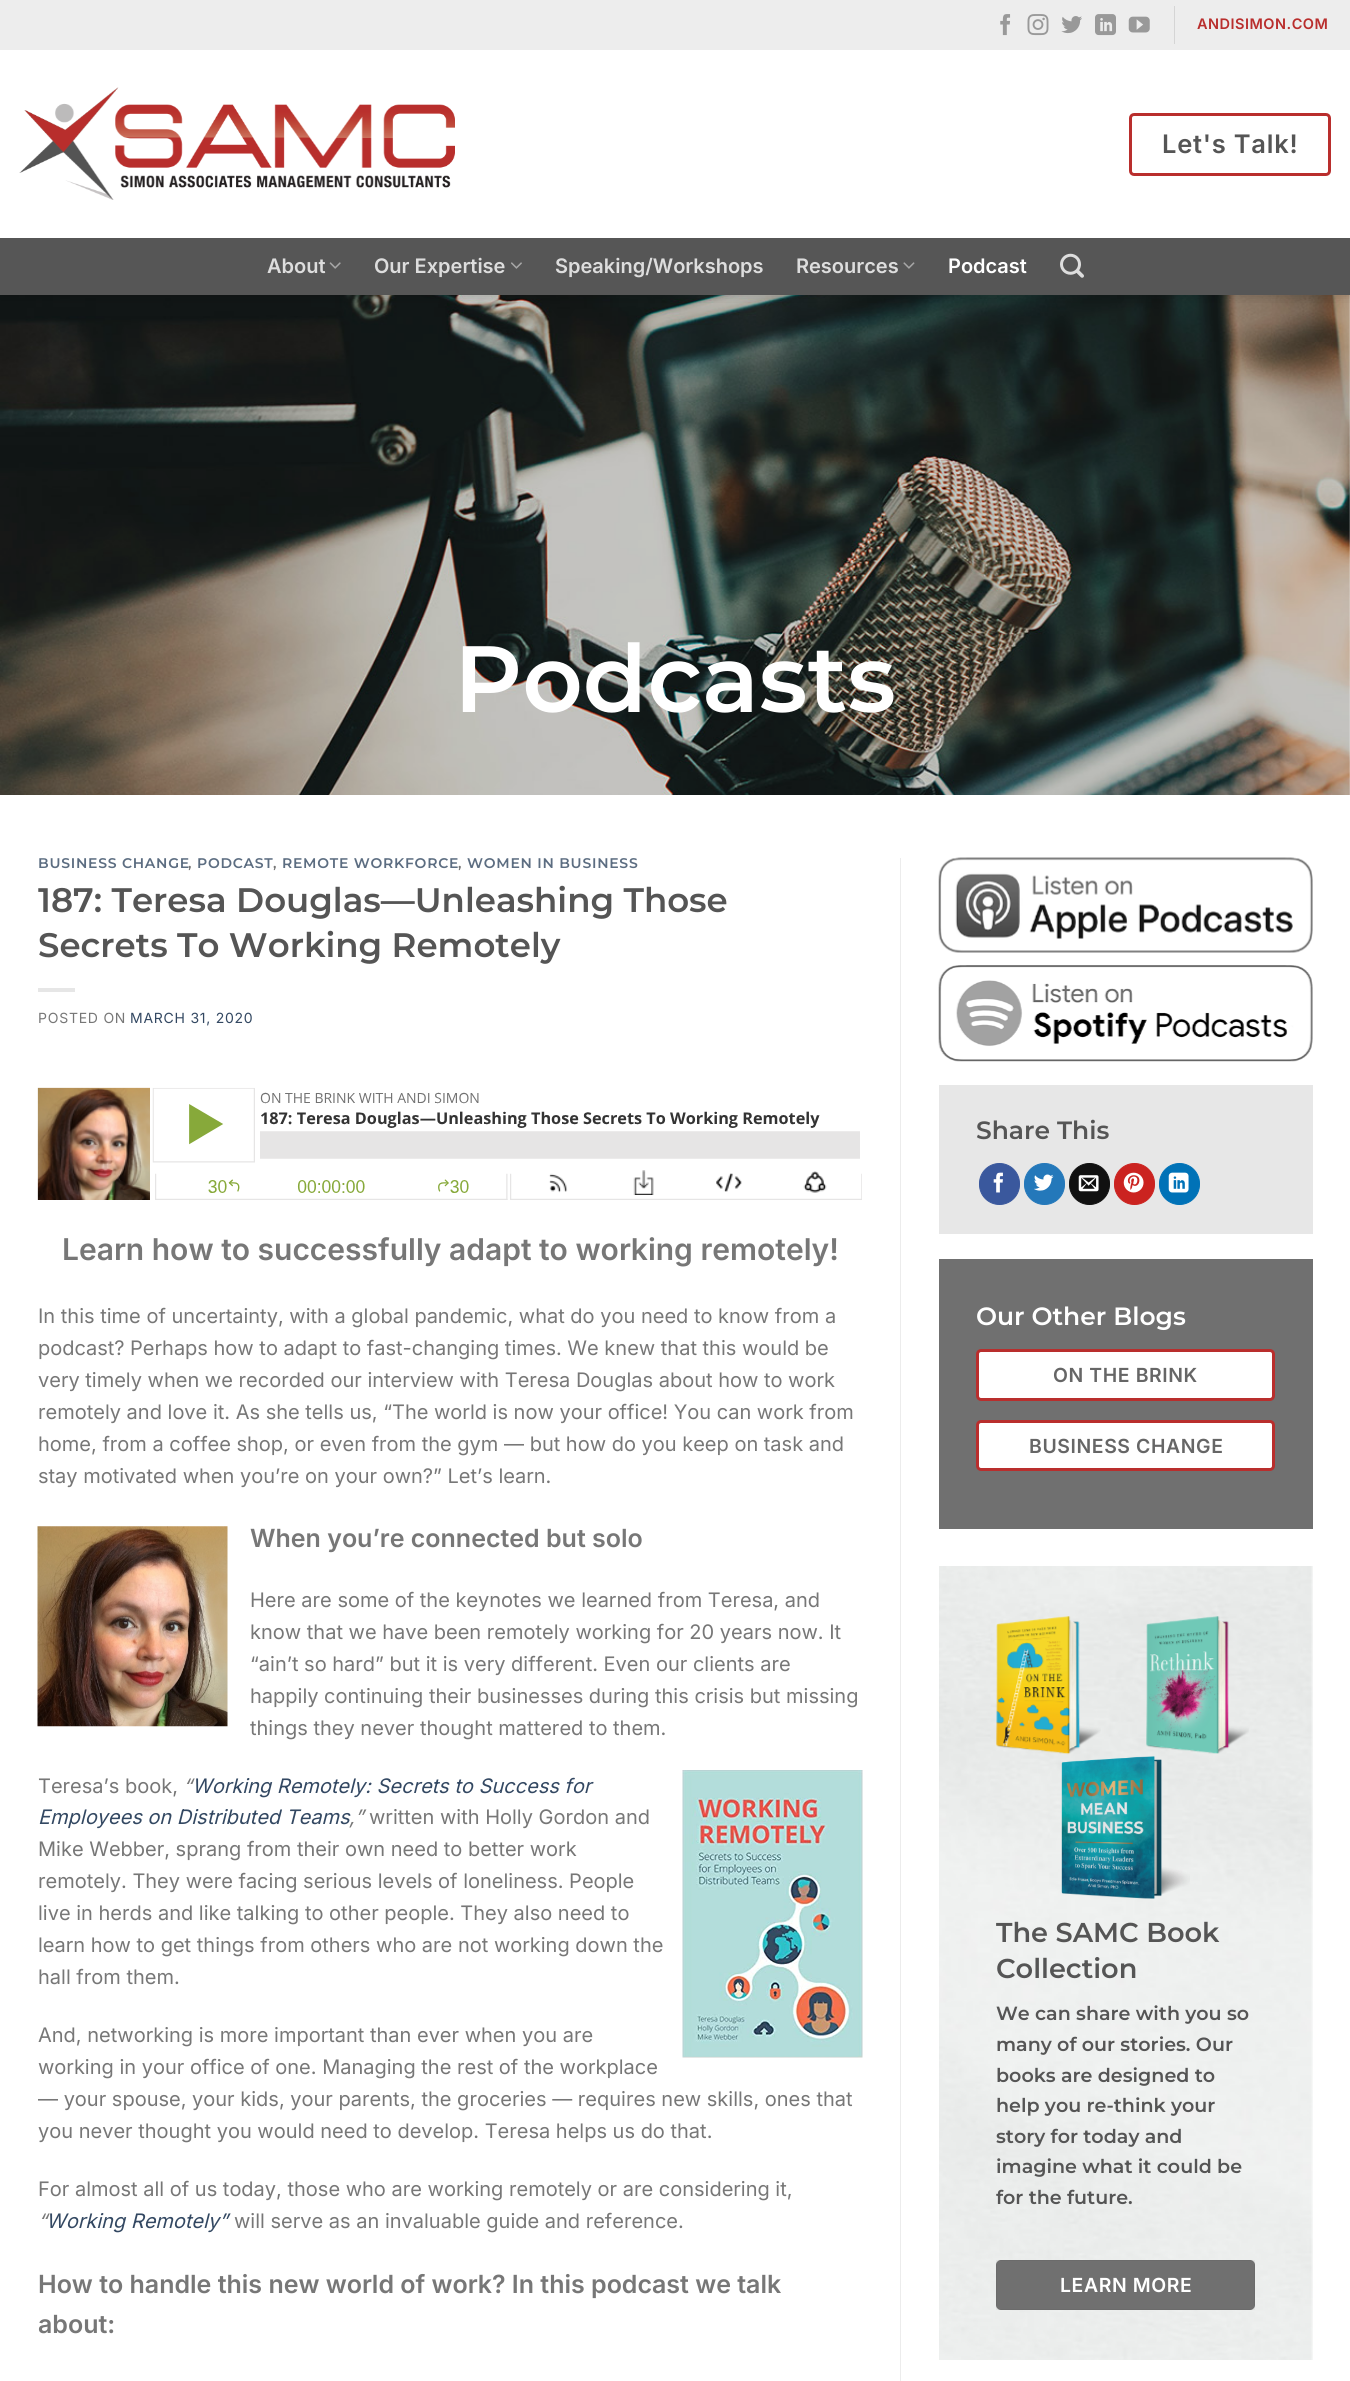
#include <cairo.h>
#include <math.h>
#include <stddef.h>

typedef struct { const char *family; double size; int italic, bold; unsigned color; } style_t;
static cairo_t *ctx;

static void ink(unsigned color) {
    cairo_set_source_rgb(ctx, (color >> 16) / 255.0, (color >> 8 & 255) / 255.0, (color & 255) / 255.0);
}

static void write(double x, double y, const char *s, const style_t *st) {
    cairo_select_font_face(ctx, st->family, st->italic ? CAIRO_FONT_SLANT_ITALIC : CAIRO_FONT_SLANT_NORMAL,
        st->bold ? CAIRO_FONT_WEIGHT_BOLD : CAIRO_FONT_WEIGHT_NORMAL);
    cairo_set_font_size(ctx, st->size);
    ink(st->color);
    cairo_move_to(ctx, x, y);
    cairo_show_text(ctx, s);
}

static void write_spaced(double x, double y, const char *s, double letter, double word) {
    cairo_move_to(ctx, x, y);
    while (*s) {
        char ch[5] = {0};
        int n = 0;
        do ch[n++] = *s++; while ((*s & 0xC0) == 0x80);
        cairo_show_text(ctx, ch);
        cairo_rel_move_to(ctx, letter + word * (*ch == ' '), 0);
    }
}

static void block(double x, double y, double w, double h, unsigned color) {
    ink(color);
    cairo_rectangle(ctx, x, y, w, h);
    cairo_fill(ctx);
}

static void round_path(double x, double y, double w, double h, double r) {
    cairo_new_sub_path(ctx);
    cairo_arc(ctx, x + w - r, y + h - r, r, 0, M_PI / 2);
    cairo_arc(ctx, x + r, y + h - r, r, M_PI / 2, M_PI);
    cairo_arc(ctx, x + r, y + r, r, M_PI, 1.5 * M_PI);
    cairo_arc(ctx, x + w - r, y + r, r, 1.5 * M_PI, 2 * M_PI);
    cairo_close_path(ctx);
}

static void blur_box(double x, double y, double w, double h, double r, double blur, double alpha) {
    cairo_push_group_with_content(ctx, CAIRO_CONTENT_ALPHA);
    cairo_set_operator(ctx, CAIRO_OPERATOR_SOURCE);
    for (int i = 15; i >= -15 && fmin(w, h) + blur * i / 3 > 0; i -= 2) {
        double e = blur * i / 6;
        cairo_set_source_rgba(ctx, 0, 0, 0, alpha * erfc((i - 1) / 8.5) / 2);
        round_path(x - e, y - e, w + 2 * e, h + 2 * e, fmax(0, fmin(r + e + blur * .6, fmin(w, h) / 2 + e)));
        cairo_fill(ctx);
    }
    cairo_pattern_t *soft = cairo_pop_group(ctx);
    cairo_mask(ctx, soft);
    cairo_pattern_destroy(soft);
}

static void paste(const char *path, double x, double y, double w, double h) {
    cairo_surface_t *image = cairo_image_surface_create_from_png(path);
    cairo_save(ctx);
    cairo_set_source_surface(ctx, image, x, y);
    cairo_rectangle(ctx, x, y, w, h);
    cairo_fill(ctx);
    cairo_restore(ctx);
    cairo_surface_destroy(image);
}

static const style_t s1 = {"Inter SemiBold", 20, 0, 0, 0xdddddd};
static const style_t s2 = {"Inter SemiBold", 20, 0, 0, 0xffffff};
static const style_t s3 = {"Montserrat Thin", 94, 0, 0, 0xffffff};
static const style_t s4 = {"Montserrat Thin", 34, 0, 0, 0x555555};
static const style_t s5 = {"Inter SemiBold", 30, 0, 0, 0x777777};
static const style_t s6 = {"Inter", 20, 0, 0, 0x777777};
static const style_t s7 = {"Inter SemiBold", 25, 0, 0, 0x777777};
static const style_t s8 = {"Inter", 20, 1, 0, 0x777777};
static const style_t s9 = {"Inter", 20, 1, 0, 0x334862};
static const style_t s10 = {"Montserrat Thin", 25, 0, 0, 0x555555};
static const style_t s11 = {"Montserrat Thin", 25, 0, 0, 0xffffff};
static const style_t s12 = {"Montserrat Thin", 27.25, 0, 0, 0x555555};
static const style_t s13 = {"Montserrat Thin", 19.1, 0, 0, 0x555555};

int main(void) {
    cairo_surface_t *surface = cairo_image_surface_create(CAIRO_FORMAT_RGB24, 1350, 2381);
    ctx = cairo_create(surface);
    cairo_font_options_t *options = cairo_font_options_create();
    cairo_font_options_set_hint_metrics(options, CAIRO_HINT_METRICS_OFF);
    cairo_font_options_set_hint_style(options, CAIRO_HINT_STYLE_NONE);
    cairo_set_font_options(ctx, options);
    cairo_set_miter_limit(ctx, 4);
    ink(0xffffff);
    cairo_paint(ctx);
    paste("pic11.png", 0, 295, 1350, 500);
    cairo_save(ctx);
    cairo_rectangle(ctx, 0, 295, 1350, 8);
    cairo_clip(ctx);
    ink(0x000000);
    blur_box(1, 1, 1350, 295, 0, 6, 0.15);
    cairo_restore(ctx);
    block(0, 0, 1350, 50, 0xededed);
    paste("pic1.png", 1000, 14, 11, 22);
    paste("pic2.png", 1027, 14, 22, 22);
    paste("pic3.png", 1061, 16, 21, 18);
    paste("pic4.png", 1095, 14, 21, 22);
    paste("pic5.png", 1128, 16, 22, 17);
    block(1174, 6, 1, 38, 0xd5d5d5);
    cairo_select_font_face(ctx, "Inter SemiBold", CAIRO_FONT_SLANT_NORMAL, CAIRO_FONT_WEIGHT_NORMAL);
    cairo_set_font_size(ctx, 14.5);
    ink(0xb92e2d);
    write_spaced(1197, 29, "ANDISIMON.COM", 0.5, 0);
    paste("pic6.png", 19, 87, 436, 113);
    round_path(1130.5, 114.5, 199, 60, 3.5);
    cairo_set_line_width(ctx, 3);
    cairo_stroke(ctx);
    cairo_set_font_size(ctx, 25.5);
    ink(0x555555);
    write_spaced(1162, 153, "Let's Talk!", 0.75, 0);
    block(0, 238, 1350, 57, 0x565656);
    write(267, 273, "About", &s1);
    paste("pic7.png", 329, 262, 12, 7);
    write(374, 273, "Our Expertise", &s1);
    paste("pic8.png", 511, 262, 11, 7);
    write(555, 273, "Speaking/Workshops", &s1);
    write(796, 273, "Resources", &s1);
    paste("pic9.png", 903, 262, 12, 7);
    write(948, 273, "Podcast", &s2);
    paste("pic10.png", 1060, 253, 24, 25);
    write(454, 712, "Podcasts", &s3);
    cairo_set_font_size(ctx, 14);
    ink(0x5c6d81);
    write_spaced(38, 868, "BUSINESS CHANGE", 0.75, 0);
    ink(0x777777);
    write_spaced(188, 868, ",", 0.75, 0);
    ink(0x5c6d81);
    write_spaced(197, 868, "PODCAST", 0.75, 0);
    ink(0x777777);
    write_spaced(273, 868, ",", 0.75, 0);
    ink(0x5c6d81);
    write_spaced(282, 868, "REMOTE WORKFORCE", 0.75, 0);
    ink(0x777777);
    write_spaced(458, 868, ",", 0.75, 0);
    ink(0x5c6d81);
    write_spaced(467, 868, "WOMEN IN BUSINESS", 0.75, 0);
    write(38, 912, "187: Teresa Douglas—Unleashing Those", &s4);
    write(38, 957, "Secrets To Working Remotely", &s4);
    block(38, 988, 37, 4, 0xe6e6e6);
    cairo_select_font_face(ctx, "Inter", CAIRO_FONT_SLANT_NORMAL, CAIRO_FONT_WEIGHT_NORMAL);
    cairo_set_font_size(ctx, 14);
    ink(0x777777);
    write_spaced(38, 1023, "POSTED ON", 0.75, 0);
    ink(0x334862);
    write_spaced(130, 1023, "MARCH 31, 2020", 0.75, 0);
    paste("pic12.png", 37, 1087, 825, 113);
    write(62, 1260, "Learn how to successfully adapt to working remotely!", &s5);
    write(38, 1323, "In this time of uncertainty, with a global pandemic, what do you need to know from a", &s6);
    write(38, 1355, "podcast? Perhaps how to adapt to fast-changing times. We knew that this would be", &s6);
    write(38, 1387, "very timely when we recorded our interview with Teresa Douglas about how to work", &s6);
    write(38, 1419, "remotely and love it. As she tells us, “The world is now your office! You can work from", &s6);
    write(38, 1451, "home, from a coffee shop, or even from the gym — but how do you keep on task and", &s6);
    write(38, 1483, "stay motivated when you’re on your own?” Let’s learn.", &s6);
    paste("pic13.png", 37, 1526, 191, 201);
    write(250, 1547, "When you’re connected but solo", &s7);
    write(250, 1607, "Here are some of the keynotes we learned from Teresa, and", &s6);
    write(250, 1639, "know that we have been remotely working for 20 years now. It", &s6);
    write(250, 1671, "“ain’t so hard” but it is very different. Even our clients are", &s6);
    write(250, 1703, "happily continuing their businesses during this crisis but missing", &s6);
    write(250, 1735, "things they never thought mattered to them.", &s6);
    write(38, 1793, "Teresa’s book,", &s6);
    write(183, 1793, "“", &s8);
    write(192, 1793, "Working Remotely: Secrets to Success for", &s9);
    paste("pic14.png", 682, 1770, 181, 288);
    write(38, 1824, "Employees on Distributed Teams", &s9);
    write(349, 1824, ",”", &s8);
    write(369, 1824, "written with Holly Gordon and", &s6);
    write(38, 1856, "Mike Webber, sprang from their own need to better work", &s6);
    write(38, 1888, "remotely. They were facing serious levels of loneliness. People", &s6);
    write(38, 1920, "live in herds and like talking to other people. They also need to", &s6);
    write(38, 1952, "learn how to get things from others who are not working down the", &s6);
    write(38, 1984, "hall from them.", &s6);
    write(38, 2042, "And, networking is more important than ever when you are", &s6);
    write(38, 2074, "working in your office of one. Managing the rest of the workplace", &s6);
    write(38, 2106, "— your spouse, your kids, your parents, the groceries — requires new skills, ones that", &s6);
    write(38, 2138, "you never thought you would need to develop. Teresa helps us do that.", &s6);
    write(38, 2196, "For almost all of us today, those who are working remotely or are considering it,", &s6);
    write(38, 2228, "“", &s8);
    write(46, 2228, "Working Remotely”", &s9);
    write(234, 2228, "will serve as an invaluable guide and reference.", &s6);
    write(38, 2293, "How to handle this new world of work? In this podcast we talk", &s7);
    write(38, 2333, "about:", &s7);
    block(900, 858, 1, 1523, 0xececec);
    paste("pic15.png", 938, 857, 375, 96);
    paste("pic16.png", 938, 965, 375, 97);
    block(939, 1085, 374, 149, 0xe7e7e7);
    write(976, 1139, "Share This", &s10);
    ink(0x3a589d);
    round_path(979.5, 1163.5, 40, 41, 20);
    cairo_fill_preserve(ctx);
    cairo_set_line_width(ctx, 1);
    cairo_stroke(ctx);
    paste("pic17.png", 993, 1172, 10, 21);
    ink(0x2478ba);
    round_path(1024.5, 1163.5, 40, 41, 20);
    cairo_fill_preserve(ctx);
    cairo_stroke(ctx);
    paste("pic18.png", 1034, 1174, 20, 17);
    ink(0x111111);
    round_path(1069.5, 1163.5, 40, 41, 20);
    cairo_fill_preserve(ctx);
    cairo_stroke(ctx);
    paste("pic19.png", 1078, 1175, 21, 17);
    ink(0xcb2320);
    round_path(1114.5, 1163.5, 40, 41, 20);
    cairo_fill_preserve(ctx);
    cairo_stroke(ctx);
    paste("pic20.png", 1123, 1172, 21, 21);
    ink(0x0072b7);
    round_path(1159.5, 1163.5, 40, 41, 20);
    cairo_fill_preserve(ctx);
    cairo_stroke(ctx);
    paste("pic21.png", 1168, 1172, 21, 21);
    block(939, 1259, 374, 270, 0x707070);
    write(976, 1325, "Our Other Blogs", &s11);
    round_path(977.5, 1350.5, 296, 49, 3.5);
    cairo_fill_preserve(ctx);
    ink(0xb92e2d);
    cairo_set_line_width(ctx, 3);
    cairo_stroke(ctx);
    cairo_select_font_face(ctx, "Inter SemiBold", CAIRO_FONT_SLANT_NORMAL, CAIRO_FONT_WEIGHT_NORMAL);
    cairo_set_font_size(ctx, 19.4);
    ink(0x666666);
    write_spaced(1053, 1382, "ON THE BRINK", 0.6, 0);
    ink(0xffffff);
    round_path(977.5, 1421.5, 296, 48, 3.5);
    cairo_fill_preserve(ctx);
    ink(0xb92e2d);
    cairo_stroke(ctx);
    ink(0x666666);
    write_spaced(1029, 1453, "BUSINESS CHANGE", 0.6, 0);
    paste("pic22.png", 939, 1566, 374, 794);
    paste("pic23.png", 996, 1616, 105, 139);
    paste("pic24.png", 1146, 1616, 103, 138);
    paste("pic25.png", 1061, 1756, 129, 143);
    write(996, 1942, "The SAMC Book", &s12);
    write(996, 1978, "Collection", &s12);
    write(996, 2020, "We can share with you so", &s13);
    write(996, 2051, "many of our stories. Our", &s13);
    write(996, 2082, "books are designed to", &s13);
    write(996, 2112, "help you re-think your", &s13);
    write(996, 2143, "story for today and", &s13);
    write(996, 2173, "imagine what it could be", &s13);
    write(996, 2204, "for the future.", &s13);
    ink(0x707070);
    round_path(996, 2260, 259, 50, 5);
    cairo_fill(ctx);
    cairo_rectangle(ctx, 996.5, 2260.5, 258, 49);
    cairo_set_source_rgba(ctx, 0, 0, 0, 0.05);
    cairo_set_line_width(ctx, 1);
    cairo_stroke(ctx);
    cairo_select_font_face(ctx, "Inter SemiBold", CAIRO_FONT_SLANT_NORMAL, CAIRO_FONT_WEIGHT_NORMAL);
    cairo_set_font_size(ctx, 19.4);
    ink(0xffffff);
    write_spaced(1060, 2292, "LEARN MORE", 0.6, 0);
    cairo_surface_write_to_png(surface, "screenshot.png");
    cairo_font_options_destroy(options);
    cairo_destroy(ctx);
    cairo_surface_destroy(surface);
    return 0;
}
